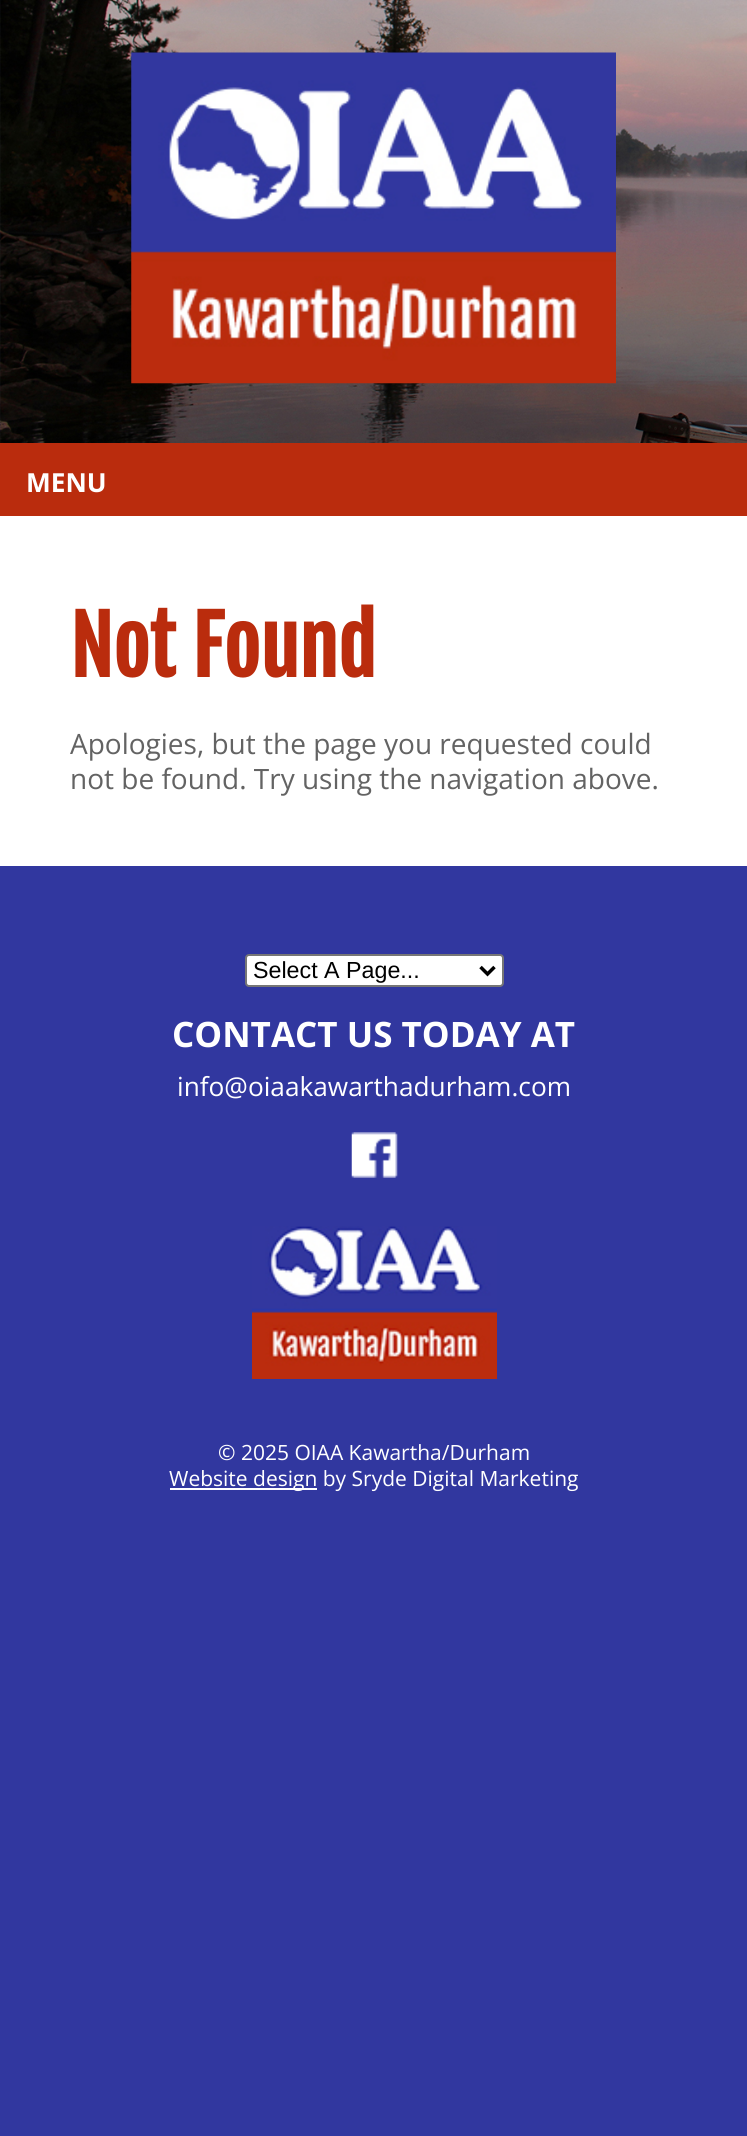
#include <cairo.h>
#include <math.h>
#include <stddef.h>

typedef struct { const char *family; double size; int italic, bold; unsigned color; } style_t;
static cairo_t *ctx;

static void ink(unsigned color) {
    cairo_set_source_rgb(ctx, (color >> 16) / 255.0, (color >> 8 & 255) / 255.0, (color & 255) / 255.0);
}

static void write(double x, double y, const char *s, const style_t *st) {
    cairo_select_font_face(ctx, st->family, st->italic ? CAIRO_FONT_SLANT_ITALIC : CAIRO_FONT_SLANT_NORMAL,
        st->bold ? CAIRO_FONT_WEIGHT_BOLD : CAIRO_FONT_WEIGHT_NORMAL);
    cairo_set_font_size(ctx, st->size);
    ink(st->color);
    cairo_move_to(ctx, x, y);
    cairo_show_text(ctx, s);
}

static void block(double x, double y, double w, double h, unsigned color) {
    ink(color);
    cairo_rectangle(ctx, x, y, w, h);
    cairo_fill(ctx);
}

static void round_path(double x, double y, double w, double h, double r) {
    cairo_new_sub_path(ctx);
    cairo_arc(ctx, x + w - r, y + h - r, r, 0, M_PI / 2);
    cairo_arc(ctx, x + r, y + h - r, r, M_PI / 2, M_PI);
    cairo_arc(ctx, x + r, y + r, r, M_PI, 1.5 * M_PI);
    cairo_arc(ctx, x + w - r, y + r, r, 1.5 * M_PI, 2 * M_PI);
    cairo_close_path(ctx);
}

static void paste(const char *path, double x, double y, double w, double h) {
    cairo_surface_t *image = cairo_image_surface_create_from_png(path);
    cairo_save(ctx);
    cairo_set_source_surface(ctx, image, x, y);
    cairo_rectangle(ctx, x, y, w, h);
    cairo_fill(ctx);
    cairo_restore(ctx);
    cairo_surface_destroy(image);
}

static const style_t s1 = {"Open Sans", 26.25, 0, 1, 0xffffff};
static const style_t s2 = {"Fjalla One", 79, 0, 1, 0xba2c0d};
static const style_t s3 = {"Open Sans", 28, 0, 0, 0x636363};
static const style_t s4 = {"Liberation Sans", 23.25, 0, 0, 0x000000};
static const style_t s5 = {"Open Sans", 35, 0, 1, 0xffffff};
static const style_t s6 = {"Open Sans", 26.25, 0, 0, 0xffffff};
static const style_t s7 = {"Open Sans", 21, 0, 0, 0xffffff};

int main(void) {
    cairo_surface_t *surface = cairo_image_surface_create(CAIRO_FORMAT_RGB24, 747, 2136);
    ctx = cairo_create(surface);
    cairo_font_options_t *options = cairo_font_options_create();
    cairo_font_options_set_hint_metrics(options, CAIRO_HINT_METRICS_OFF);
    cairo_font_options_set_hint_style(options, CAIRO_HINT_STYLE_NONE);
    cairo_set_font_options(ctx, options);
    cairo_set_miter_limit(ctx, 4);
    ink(0x31379f);
    cairo_paint(ctx);
    paste("pic1.png", 0, 0, 747, 443);
    paste("pic2.png", 131, 52, 485, 332);
    block(0, 443, 747, 73, 0xba2c0d);
    write(26, 492, "MENU", &s1);
    block(0, 516, 747, 350, 0xffffff);
    write(70, 677, "Not Found", &s2);
    write(70, 754, "Apologies, but the page you requested could", &s3);
    write(70, 789, "not be found. Try using the navigation above.", &s3);
    ink(0xffffff);
    round_path(246, 955, 257, 31, 3);
    cairo_fill_preserve(ctx);
    ink(0x767676);
    cairo_stroke(ctx);
    cairo_new_path(ctx);
    cairo_move_to(ctx, 480.5, 967);
    cairo_line_to(ctx, 487.5, 974);
    cairo_line_to(ctx, 494.5, 967);
    ink(0x000000);
    cairo_set_line_width(ctx, 3.5);
    cairo_stroke(ctx);
    write(253, 978, "Select A Page...", &s4);
    write(172, 1047, "CONTACT US TODAY AT", &s5);
    write(177, 1096, "info@oiaakawarthadurham.com", &s6);
    paste("pic3.png", 351, 1132, 47, 46);
    paste("pic4.png", 252, 1226, 245, 153);
    write(218, 1460, "© 2025 OIAA Kawartha/Durham", &s7);
    block(170, 1488, 147, 2, 0xffffff);
    write(169, 1486, "Website design by Sryde Digital Marketing", &s7);
    cairo_surface_write_to_png(surface, "screenshot.png");
    cairo_font_options_destroy(options);
    cairo_destroy(ctx);
    cairo_surface_destroy(surface);
    return 0;
}
